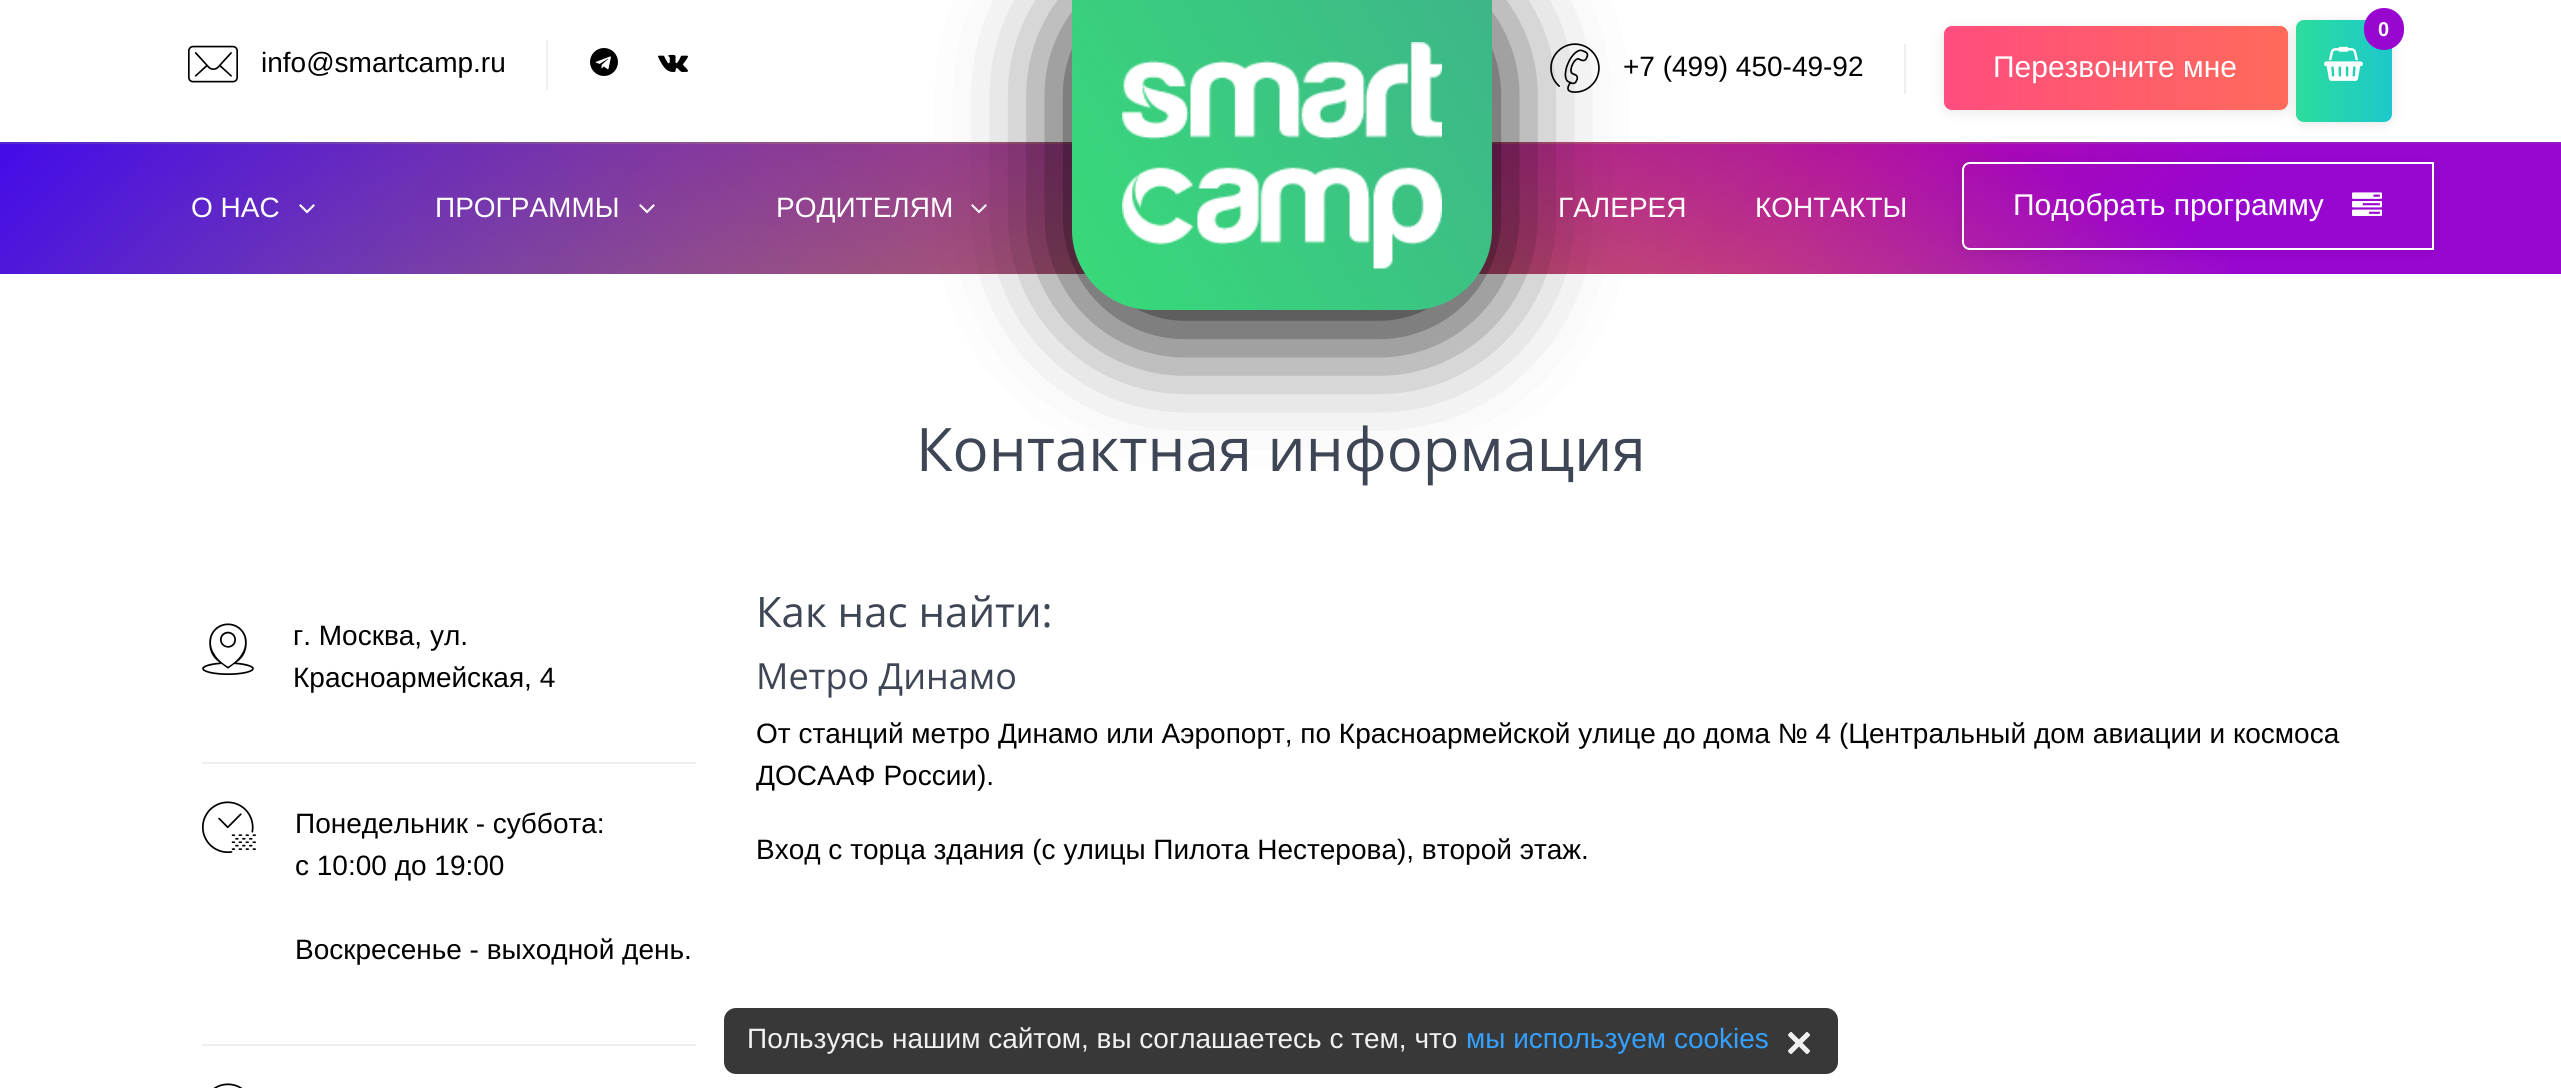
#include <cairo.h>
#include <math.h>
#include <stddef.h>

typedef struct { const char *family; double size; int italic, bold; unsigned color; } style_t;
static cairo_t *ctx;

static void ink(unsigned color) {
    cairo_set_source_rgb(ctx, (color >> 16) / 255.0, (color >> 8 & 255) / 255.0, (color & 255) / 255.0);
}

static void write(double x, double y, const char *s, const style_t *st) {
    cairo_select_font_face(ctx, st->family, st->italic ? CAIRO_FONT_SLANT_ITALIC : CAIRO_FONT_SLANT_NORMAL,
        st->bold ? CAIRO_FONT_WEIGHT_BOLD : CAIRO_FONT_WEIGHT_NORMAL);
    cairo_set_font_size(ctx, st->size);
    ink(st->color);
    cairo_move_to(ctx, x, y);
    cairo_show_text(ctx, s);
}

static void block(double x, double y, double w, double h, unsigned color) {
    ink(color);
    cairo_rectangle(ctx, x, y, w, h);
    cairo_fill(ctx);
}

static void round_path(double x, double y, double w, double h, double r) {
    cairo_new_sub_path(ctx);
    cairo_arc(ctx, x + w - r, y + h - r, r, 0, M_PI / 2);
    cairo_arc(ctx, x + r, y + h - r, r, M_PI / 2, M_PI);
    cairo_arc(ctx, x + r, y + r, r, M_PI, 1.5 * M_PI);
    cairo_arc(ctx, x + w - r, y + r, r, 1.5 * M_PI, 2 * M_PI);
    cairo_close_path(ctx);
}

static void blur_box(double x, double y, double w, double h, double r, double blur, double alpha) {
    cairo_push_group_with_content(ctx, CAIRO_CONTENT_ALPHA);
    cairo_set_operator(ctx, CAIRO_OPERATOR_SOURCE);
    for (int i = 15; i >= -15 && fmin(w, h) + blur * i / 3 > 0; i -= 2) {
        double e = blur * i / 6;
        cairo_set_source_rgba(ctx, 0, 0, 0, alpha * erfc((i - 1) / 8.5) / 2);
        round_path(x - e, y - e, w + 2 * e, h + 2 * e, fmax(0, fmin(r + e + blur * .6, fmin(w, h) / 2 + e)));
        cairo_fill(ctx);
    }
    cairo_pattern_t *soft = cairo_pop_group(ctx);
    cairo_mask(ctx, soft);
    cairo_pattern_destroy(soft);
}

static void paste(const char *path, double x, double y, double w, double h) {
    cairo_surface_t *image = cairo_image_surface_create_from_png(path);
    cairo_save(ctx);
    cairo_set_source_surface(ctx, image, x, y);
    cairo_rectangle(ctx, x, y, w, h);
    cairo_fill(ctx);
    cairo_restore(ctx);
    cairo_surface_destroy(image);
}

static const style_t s1 = {"Liberation Sans", 28, 0, 0, 0x000000};
static const style_t s2 = {"Liberation Sans", 20, 0, 1, 0xffffff};
static const style_t s3 = {"Liberation Sans", 30, 0, 0, 0xffffff};
static const style_t s4 = {"Liberation Sans", 28, 0, 0, 0xffffff};
static const style_t s5 = {"Open Sans", 60, 0, 0, 0x3e4555};
static const style_t s6 = {"Open Sans", 42, 0, 0, 0x3e4555};
static const style_t s7 = {"Open Sans", 36, 0, 0, 0x3e4555};
static const style_t s8 = {"Liberation Sans", 28, 0, 0, 0xf1f1f1};
static const style_t s9 = {"Liberation Sans", 28, 0, 0, 0x34a0ff};

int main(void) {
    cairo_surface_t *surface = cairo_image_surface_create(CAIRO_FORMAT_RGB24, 2561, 1088);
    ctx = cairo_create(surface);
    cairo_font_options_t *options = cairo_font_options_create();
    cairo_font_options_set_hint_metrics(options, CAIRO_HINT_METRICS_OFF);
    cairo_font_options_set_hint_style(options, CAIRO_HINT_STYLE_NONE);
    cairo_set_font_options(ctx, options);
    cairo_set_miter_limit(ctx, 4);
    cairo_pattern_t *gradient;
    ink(0xffffff);
    cairo_paint(ctx);
    paste("pic1.png", 188, 45, 50, 38);
    write(261, 72, "info@smartcamp.ru", &s1);
    block(546, 40, 2, 50, 0xedeff0);
    paste("pic2.png", 590, 48, 28, 28);
    paste("pic3.png", 658, 54, 30, 18);
    ink(0x000000);
    blur_box(1944, 28, 344, 84, 8, 6, 0.1);
    gradient = cairo_pattern_create_linear(1944, 68, 2288, 68);
    cairo_pattern_add_color_stop_rgba(gradient, 0, 1, 0.302, 0.494, 1);
    cairo_pattern_add_color_stop_rgba(gradient, 1, 1, 0.416, 0.357, 1);
    cairo_set_source(ctx, gradient);
    cairo_pattern_destroy(gradient);
    round_path(1944, 26, 344, 84, 8);
    cairo_fill(ctx);
    ink(0x000000);
    blur_box(2296, 22, 96, 102, 8, 6, 0.1);
    gradient = cairo_pattern_create_linear(2296, 71, 2392, 71);
    cairo_pattern_add_color_stop_rgba(gradient, 0, 0.173, 0.867, 0.608, 1);
    cairo_pattern_add_color_stop_rgba(gradient, 1, 0.114, 0.784, 0.8, 1);
    cairo_set_source(ctx, gradient);
    cairo_pattern_destroy(gradient);
    round_path(2296, 20, 96, 102, 8);
    cairo_fill(ctx);
    paste("pic4.png", 2324, 46, 39, 35);
    ink(0x9906d0);
    round_path(2364, 8, 40, 42, 20);
    cairo_fill(ctx);
    write(2378, 36, "0", &s2);
    paste("pic5.png", 1550, 43, 50, 50);
    write(1623, 76, "+7 (499) 450-49-92", &s1);
    block(1904, 44, 2, 50, 0xedeff0);
    write(1993, 77, "Перезвоните мне", &s3);
    gradient = cairo_pattern_create_linear(1954, 752, 608, -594);
    cairo_pattern_add_color_stop_rgba(gradient, 0.15, 0.584, 0.086, 0.78, 1);
    cairo_pattern_add_color_stop_rgba(gradient, 0.8, 0.886, 0.102, 0.263, 1);
    cairo_set_source(ctx, gradient);
    cairo_pattern_destroy(gradient);
    cairo_rectangle(ctx, 293, 142, 2268, 2);
    cairo_fill(ctx);
    gradient = cairo_pattern_create_linear(1954, 882, 608, -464);
    cairo_pattern_add_color_stop_rgba(gradient, 0.15, 0.6, 0.024, 0.816, 1);
    cairo_pattern_add_color_stop_rgba(gradient, 0.8, 0.945, 0.043, 0.22, 1);
    cairo_set_source(ctx, gradient);
    cairo_pattern_destroy(gradient);
    cairo_rectangle(ctx, 19, 144, 2542, 130);
    cairo_fill(ctx);
    gradient = cairo_pattern_create_linear(1027, 623, 1535, -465);
    cairo_pattern_add_color_stop_rgba(gradient, 0.1, 0.878, 0.749, 0.102, 1);
    cairo_pattern_add_color_stop_rgba(gradient, 0.8, 0.878, 0.749, 0.102, 0);
    cairo_set_source(ctx, gradient);
    cairo_pattern_destroy(gradient);
    cairo_rectangle(ctx, 0, 142, 2228, 2);
    cairo_fill(ctx);
    gradient = cairo_pattern_create_linear(1027, 753, 1535, -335);
    cairo_pattern_add_color_stop_rgba(gradient, 0.1, 0.941, 0.784, 0.035, 1);
    cairo_pattern_add_color_stop_rgba(gradient, 0.8, 0.941, 0.784, 0.035, 0);
    cairo_set_source(ctx, gradient);
    cairo_pattern_destroy(gradient);
    cairo_rectangle(ctx, 0, 144, 2228, 130);
    cairo_fill(ctx);
    gradient = cairo_pattern_create_linear(608, -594, 1954, 752);
    cairo_pattern_add_color_stop_rgba(gradient, 0, 0.294, 0.102, 0.871, 1);
    cairo_pattern_add_color_stop_rgba(gradient, 0.7, 0.294, 0.102, 0.871, 0);
    cairo_set_source(ctx, gradient);
    cairo_pattern_destroy(gradient);
    cairo_rectangle(ctx, 0, 142, 1715, 2);
    cairo_fill(ctx);
    gradient = cairo_pattern_create_linear(608, -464, 1954, 882);
    cairo_pattern_add_color_stop_rgba(gradient, 0, 0.267, 0.039, 0.918, 1);
    cairo_pattern_add_color_stop_rgba(gradient, 0.7, 0.267, 0.039, 0.918, 0);
    cairo_set_source(ctx, gradient);
    cairo_pattern_destroy(gradient);
    cairo_rectangle(ctx, 0, 144, 1843, 130);
    cairo_fill(ctx);
    paste("pic9.png", 971, 204, 16, 10);
    ink(0x000000);
    blur_box(1072, -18, 420, 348, 80, 55, 1);
    gradient = cairo_pattern_create_linear(1051, 275, 1513, -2.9);
    cairo_pattern_add_color_stop_rgba(gradient, 0, 0.216, 0.859, 0.475, 1);
    cairo_pattern_add_color_stop_rgba(gradient, 1, 0.243, 0.706, 0.537, 1);
    cairo_set_source(ctx, gradient);
    cairo_pattern_destroy(gradient);
    cairo_new_path(ctx);
    cairo_move_to(ctx, 1072, 0);
    cairo_line_to(ctx, 1492, 0);
    cairo_line_to(ctx, 1492, 230);
    cairo_curve_to(ctx, 1492, 274, 1456, 310, 1412, 310);
    cairo_line_to(ctx, 1152, 310);
    cairo_curve_to(ctx, 1108, 310, 1072, 274, 1072, 230);
    cairo_close_path(ctx);
    cairo_fill(ctx);
    paste("pic6.png", 1122, 42, 320, 227);
    write(191, 217, "О НАС", &s4);
    paste("pic7.png", 299, 204, 16, 10);
    write(435, 217, "ПРОГРАММЫ", &s4);
    paste("pic8.png", 639, 204, 16, 10);
    write(776, 217, "РОДИТЕЛЯМ", &s4);
    write(1558, 217, "ГАЛЕРЕЯ", &s4);
    write(1755, 217, "КОНТАКТЫ", &s4);
    cairo_save(ctx);
    cairo_set_fill_rule(ctx, CAIRO_FILL_RULE_EVEN_ODD);
    cairo_new_path(ctx);
    cairo_move_to(ctx, 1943, 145);
    cairo_line_to(ctx, 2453, 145);
    cairo_line_to(ctx, 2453, 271);
    cairo_line_to(ctx, 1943, 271);
    cairo_close_path(ctx);
    cairo_move_to(ctx, 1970, 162);
    cairo_line_to(ctx, 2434, 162);
    cairo_line_to(ctx, 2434, 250);
    cairo_line_to(ctx, 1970, 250);
    cairo_curve_to(ctx, 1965.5, 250, 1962, 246.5, 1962, 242);
    cairo_line_to(ctx, 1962, 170);
    cairo_curve_to(ctx, 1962, 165.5, 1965.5, 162, 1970, 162);
    cairo_close_path(ctx);
    cairo_clip(ctx);
    ink(0x000000);
    blur_box(1962, 164, 472, 88, 8, 6, 0.1);
    cairo_restore(ctx);
    cairo_new_path(ctx);
    cairo_move_to(ctx, 1970, 163);
    cairo_line_to(ctx, 2433, 163);
    cairo_line_to(ctx, 2433, 249);
    cairo_line_to(ctx, 1970, 249);
    cairo_curve_to(ctx, 1966, 249, 1963, 246, 1963, 242);
    cairo_line_to(ctx, 1963, 170);
    cairo_curve_to(ctx, 1963, 166, 1966, 163, 1970, 163);
    cairo_close_path(ctx);
    cairo_stroke(ctx);
    write(2013, 215, "Подобрать программу", &s3);
    paste("pic10.png", 2352, 192, 30, 24);
    write(916, 471, "Контактная информация", &s5);
    block(202, 762, 494, 2, 0xedeff0);
    paste("pic11.png", 202, 623, 52, 53);
    write(293, 645, "г. Москва, ул.", &s1);
    write(293, 687, "Красноармейская, 4", &s1);
    block(202, 1044, 494, 2, 0xedeff0);
    paste("pic12.png", 202, 801, 54, 53);
    write(295, 833, "Понедельник - суббота:", &s1);
    write(295, 875, "с 10:00 до 19:00", &s1);
    write(295, 959, "Воскресенье - выходной день.", &s1);
    paste("pic13.png", 213, 1083, 30, 5);
    write(756, 627, "Как нас найти:", &s6);
    write(756, 689, "Метро Динамо", &s7);
    write(756, 743, "От станций метро Динамо или Аэропорт, по Красноармейской улице до дома № 4 (Центральный дом авиации и космоса", &s1);
    write(756, 785, "ДОСААФ России).", &s1);
    write(756, 859, "Вход с торца здания (с улицы Пилота Нестерова), второй этаж.", &s1);
    ink(0x383838);
    round_path(724, 1008, 1114, 66, 12);
    cairo_fill(ctx);
    write(747, 1048, "Пользуясь нашим сайтом, вы соглашаетесь с тем, что", &s8);
    write(1466, 1048, "мы используем cookies", &s9);
    paste("pic14.png", 1788, 1032, 22, 22);
    cairo_surface_write_to_png(surface, "screenshot.png");
    cairo_font_options_destroy(options);
    cairo_destroy(ctx);
    cairo_surface_destroy(surface);
    return 0;
}
